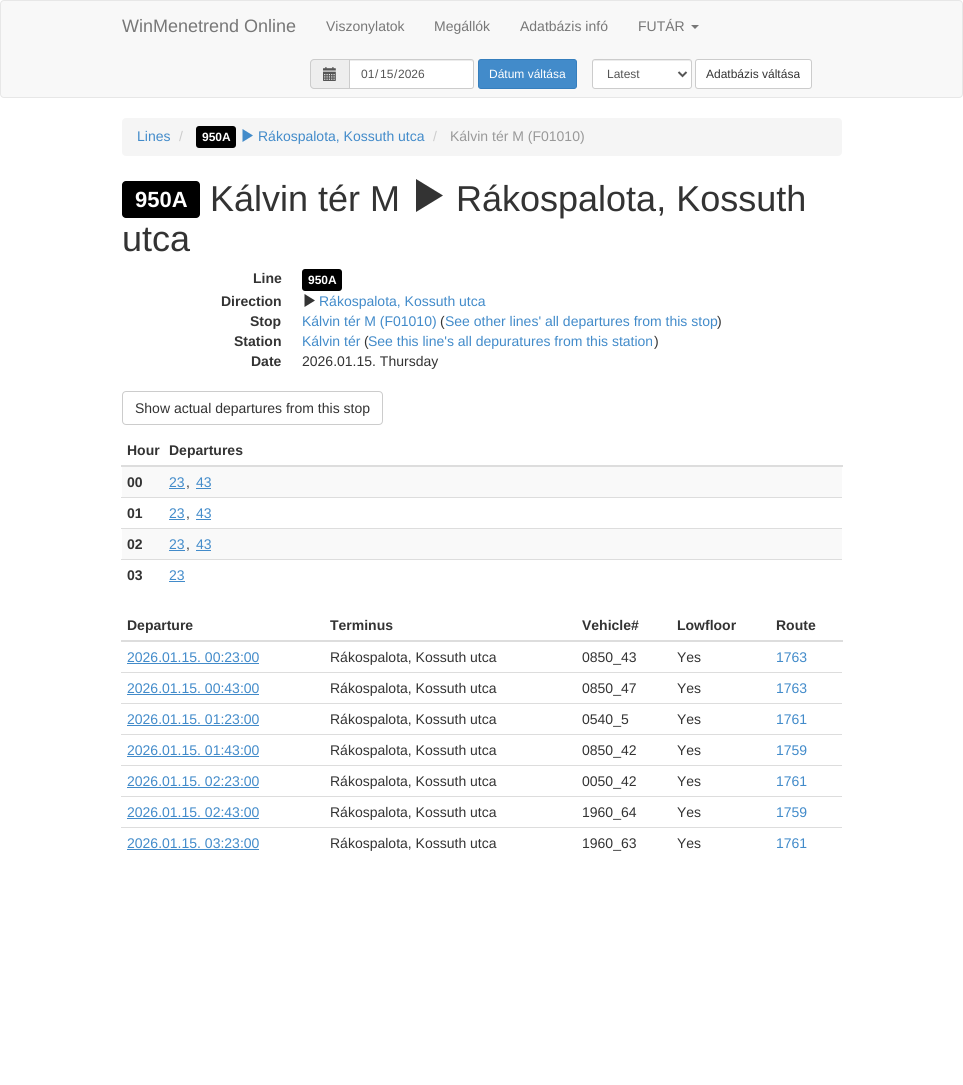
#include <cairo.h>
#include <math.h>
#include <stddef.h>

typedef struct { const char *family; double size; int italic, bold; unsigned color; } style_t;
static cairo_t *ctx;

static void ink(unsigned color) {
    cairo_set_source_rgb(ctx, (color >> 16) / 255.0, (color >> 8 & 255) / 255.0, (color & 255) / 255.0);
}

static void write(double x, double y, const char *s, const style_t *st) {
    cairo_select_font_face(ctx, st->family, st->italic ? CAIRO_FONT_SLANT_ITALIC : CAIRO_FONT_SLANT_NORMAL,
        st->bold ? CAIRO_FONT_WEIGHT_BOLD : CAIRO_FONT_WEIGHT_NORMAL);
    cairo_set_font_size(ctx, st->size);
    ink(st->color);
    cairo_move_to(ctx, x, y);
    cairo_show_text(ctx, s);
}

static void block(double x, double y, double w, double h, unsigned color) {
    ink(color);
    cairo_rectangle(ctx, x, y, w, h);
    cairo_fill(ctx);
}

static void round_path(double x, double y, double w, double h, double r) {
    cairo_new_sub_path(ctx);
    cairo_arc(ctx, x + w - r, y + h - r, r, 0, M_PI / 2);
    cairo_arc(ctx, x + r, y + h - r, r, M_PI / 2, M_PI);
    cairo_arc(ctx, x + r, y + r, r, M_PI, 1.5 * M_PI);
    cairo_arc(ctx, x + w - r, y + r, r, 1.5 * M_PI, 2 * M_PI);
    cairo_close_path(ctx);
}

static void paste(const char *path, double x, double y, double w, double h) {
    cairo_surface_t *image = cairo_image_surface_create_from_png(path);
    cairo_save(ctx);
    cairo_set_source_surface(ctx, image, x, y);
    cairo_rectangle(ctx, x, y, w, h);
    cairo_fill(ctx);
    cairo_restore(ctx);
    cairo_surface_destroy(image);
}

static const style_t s1 = {"Liberation Sans", 18, 0, 0, 0x777777};
static const style_t s2 = {"Liberation Sans", 14, 0, 0, 0x777777};
static const style_t s3 = {"Liberation Sans", 12, 0, 0, 0x555555};
static const style_t s4 = {"Liberation Sans", 12, 0, 0, 0xffffff};
static const style_t s5 = {"Liberation Sans", 12, 0, 0, 0x333333};
static const style_t s6 = {"Liberation Sans", 14, 0, 0, 0x428bca};
static const style_t s7 = {"Liberation Sans", 14, 0, 0, 0xcccccc};
static const style_t s8 = {"Liberation Sans", 12, 0, 1, 0xffffff};
static const style_t s9 = {"Liberation Sans", 14, 0, 0, 0x999999};
static const style_t s10 = {"Liberation Sans", 22, 0, 1, 0xffffff};
static const style_t s11 = {"Liberation Sans", 36, 0, 0, 0x333333};
static const style_t s12 = {"Liberation Sans", 14, 0, 1, 0x333333};
static const style_t s13 = {"Liberation Sans", 14, 0, 0, 0x333333};

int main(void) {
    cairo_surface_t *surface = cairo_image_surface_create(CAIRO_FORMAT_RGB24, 963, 1085);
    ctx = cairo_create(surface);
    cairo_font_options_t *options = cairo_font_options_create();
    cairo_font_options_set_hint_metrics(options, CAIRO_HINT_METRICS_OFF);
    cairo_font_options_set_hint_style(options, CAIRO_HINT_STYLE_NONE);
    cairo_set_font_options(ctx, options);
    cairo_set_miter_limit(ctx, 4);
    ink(0xffffff);
    cairo_paint(ctx);
    ink(0xf8f8f8);
    round_path(0.5, 0.5, 962, 97, 3.5);
    cairo_fill_preserve(ctx);
    ink(0xe7e7e7);
    cairo_set_line_width(ctx, 1);
    cairo_stroke(ctx);
    write(122, 32, "WinMenetrend Online", &s1);
    write(326, 31, "Viszonylatok", &s2);
    write(434, 31, "Megállók", &s2);
    write(520, 31, "Adatbázis infó", &s2);
    write(638, 31, "FUTÁR", &s2);
    cairo_new_path(ctx);
    cairo_move_to(ctx, 691, 25);
    cairo_line_to(ctx, 699, 25);
    cairo_line_to(ctx, 695, 29);
    cairo_close_path(ctx);
    cairo_fill(ctx);
    ink(0xeeeeee);
    cairo_new_path(ctx);
    cairo_move_to(ctx, 314, 59);
    cairo_line_to(ctx, 349, 59);
    cairo_line_to(ctx, 349, 89);
    cairo_line_to(ctx, 314, 89);
    cairo_curve_to(ctx, 312, 89, 310, 87, 310, 85);
    cairo_line_to(ctx, 310, 63);
    cairo_curve_to(ctx, 310, 61, 312, 59, 314, 59);
    cairo_close_path(ctx);
    cairo_fill(ctx);
    ink(0xcccccc);
    cairo_set_fill_rule(ctx, CAIRO_FILL_RULE_EVEN_ODD);
    cairo_new_path(ctx);
    cairo_move_to(ctx, 314, 59);
    cairo_line_to(ctx, 349, 59);
    cairo_line_to(ctx, 349, 89);
    cairo_line_to(ctx, 314, 89);
    cairo_curve_to(ctx, 312, 89, 310, 87, 310, 85);
    cairo_line_to(ctx, 310, 63);
    cairo_curve_to(ctx, 310, 61, 312, 59, 314, 59);
    cairo_close_path(ctx);
    cairo_move_to(ctx, 314, 60);
    cairo_line_to(ctx, 349, 60);
    cairo_line_to(ctx, 349, 88);
    cairo_line_to(ctx, 314, 88);
    cairo_curve_to(ctx, 312.5, 88, 311, 86.5, 311, 85);
    cairo_line_to(ctx, 311, 63);
    cairo_curve_to(ctx, 311, 61.5, 312.5, 60, 314, 60);
    cairo_close_path(ctx);
    cairo_fill(ctx);
    paste("pic1.png", 323, 67, 13, 14);
    ink(0xffffff);
    cairo_new_path(ctx);
    cairo_move_to(ctx, 349, 59);
    cairo_line_to(ctx, 471, 59);
    cairo_curve_to(ctx, 472.5, 59, 474, 60.5, 474, 62);
    cairo_line_to(ctx, 474, 86);
    cairo_curve_to(ctx, 474, 87.5, 472.5, 89, 471, 89);
    cairo_line_to(ctx, 349, 89);
    cairo_close_path(ctx);
    cairo_fill(ctx);
    ink(0xececec);
    cairo_set_fill_rule(ctx, CAIRO_FILL_RULE_WINDING);
    cairo_new_path(ctx);
    cairo_move_to(ctx, 350, 61);
    cairo_line_to(ctx, 471, 61);
    cairo_line_to(ctx, 473, 62);
    cairo_line_to(ctx, 473, 63);
    cairo_curve_to(ctx, 473, 62, 473, 60, 471, 60);
    cairo_line_to(ctx, 350, 60);
    cairo_close_path(ctx);
    cairo_fill(ctx);
    cairo_new_path(ctx);
    cairo_move_to(ctx, 349.5, 59.5);
    cairo_line_to(ctx, 471, 59.5);
    cairo_curve_to(ctx, 472.5, 59.5, 473.5, 60.5, 473.5, 62);
    cairo_line_to(ctx, 473.5, 86);
    cairo_curve_to(ctx, 473.5, 87.5, 472.5, 88.5, 471, 88.5);
    cairo_line_to(ctx, 349.5, 88.5);
    cairo_close_path(ctx);
    ink(0xcccccc);
    cairo_stroke(ctx);
    write(361, 78, "01", &s3);
    write(375, 78, "/", &s3);
    write(380, 78, "15", &s3);
    write(394, 78, "/", &s3);
    write(398, 78, "2026", &s3);
    ink(0x428bca);
    round_path(478.5, 59.5, 98, 29, 2.5);
    cairo_fill_preserve(ctx);
    ink(0x357ebd);
    cairo_stroke(ctx);
    write(489, 78, "Dátum váltása", &s4);
    round_path(592, 59, 100, 30, 3);
    cairo_fill(ctx);
    ink(0xececec);
    cairo_new_path(ctx);
    cairo_move_to(ctx, 595, 61);
    cairo_line_to(ctx, 689, 61);
    cairo_curve_to(ctx, 690, 61, 691, 62, 691, 63);
    cairo_curve_to(ctx, 691, 62, 691, 60, 689, 60);
    cairo_line_to(ctx, 611, 60);
    cairo_curve_to(ctx, 609, 60, 593, 56, 593, 63);
    cairo_curve_to(ctx, 593, 62, 594, 61, 595, 61);
    cairo_close_path(ctx);
    cairo_fill(ctx);
    round_path(592.5, 59.5, 99, 29, 2.5);
    ink(0xcccccc);
    cairo_stroke(ctx);
    cairo_new_path(ctx);
    cairo_move_to(ctx, 678.5, 72);
    cairo_line_to(ctx, 682.5, 76);
    cairo_line_to(ctx, 686.5, 72);
    ink(0x555555);
    cairo_set_line_width(ctx, 2);
    cairo_stroke(ctx);
    write(607, 78, "Latest", &s3);
    ink(0xffffff);
    round_path(695.5, 59.5, 116, 29, 2.5);
    cairo_fill_preserve(ctx);
    ink(0xcccccc);
    cairo_set_line_width(ctx, 1);
    cairo_stroke(ctx);
    write(706, 78, "Adatbázis váltása", &s5);
    ink(0xf5f5f5);
    round_path(122, 118, 720, 38, 4);
    cairo_fill(ctx);
    write(137, 141, "Lines", &s6);
    write(179, 141, "/", &s7);
    ink(0x000000);
    round_path(196, 126, 40, 22, 3);
    cairo_fill(ctx);
    write(202, 141, "950A", &s8);
    ink(0x428bca);
    cairo_new_path(ctx);
    cairo_move_to(ctx, 242.5, 142);
    cairo_line_to(ctx, 253, 135.5);
    cairo_line_to(ctx, 242.5, 129);
    cairo_close_path(ctx);
    cairo_fill(ctx);
    write(258, 141, "Rákospalota, Kossuth utca", &s6);
    write(433, 141, "/", &s7);
    write(450, 141, "Kálvin tér M (F01010)", &s9);
    ink(0x000000);
    round_path(122, 181, 78, 37, 4);
    cairo_fill(ctx);
    write(135, 207, "950A", &s10);
    write(210, 211, "Kálvin tér M", &s11);
    cairo_new_path(ctx);
    cairo_move_to(ctx, 416, 212);
    cairo_line_to(ctx, 443, 195.5);
    cairo_line_to(ctx, 416, 179);
    cairo_close_path(ctx);
    cairo_fill(ctx);
    write(456, 211, "Rákospalota, Kossuth", &s11);
    write(122, 251, "utca", &s11);
    write(253, 283, "Line", &s12);
    ink(0x000000);
    round_path(302, 269, 40, 22, 3);
    cairo_fill(ctx);
    write(308, 284, "950A", &s8);
    write(221, 306, "Direction", &s12);
    cairo_new_path(ctx);
    cairo_move_to(ctx, 304.5, 307);
    cairo_line_to(ctx, 315, 300.5);
    cairo_line_to(ctx, 304.5, 294);
    cairo_close_path(ctx);
    cairo_fill(ctx);
    write(319, 306, "Rákospalota, Kossuth utca", &s6);
    write(250, 326, "Stop", &s12);
    write(302, 326, "Kálvin tér M (F01010)", &s6);
    write(440, 326, "(", &s13);
    write(445, 326, "See other lines' all departures from this stop", &s6);
    write(717, 326, ")", &s13);
    write(234, 346, "Station", &s12);
    write(302, 346, "Kálvin tér", &s6);
    write(364, 346, "(", &s13);
    write(368, 346, "See this line's all depuratures from this station", &s6);
    write(654, 346, ")", &s13);
    write(251, 366, "Date", &s12);
    write(302, 366, "2026.01.15. Thursday", &s13);
    round_path(122.5, 391.5, 260, 33, 3.5);
    ink(0xcccccc);
    cairo_stroke(ctx);
    write(135, 413, "Show actual departures from this stop", &s13);
    write(127, 455, "Hour", &s12);
    block(121, 465, 722, 2, 0xdddddd);
    write(169, 455, "Departures", &s12);
    block(122, 467, 720, 30, 0xf9f9f9);
    write(127, 487, "00", &s12);
    write(169, 487, "23", &s6);
    block(169, 488, 16, 1, 0x428bca);
    write(186, 487, ",", &s13);
    write(196, 487, "43", &s6);
    block(196, 488, 15, 1, 0x428bca);
    write(127, 518, "01", &s12);
    block(121, 497, 721, 1, 0xdddddd);
    write(169, 518, "23", &s6);
    block(169, 519, 16, 1, 0x428bca);
    write(186, 518, ",", &s13);
    write(196, 518, "43", &s6);
    block(196, 519, 15, 1, 0x428bca);
    block(122, 529, 720, 30, 0xf9f9f9);
    write(127, 549, "02", &s12);
    block(121, 528, 721, 1, 0xdddddd);
    write(169, 549, "23", &s6);
    block(169, 550, 16, 1, 0x428bca);
    write(186, 549, ",", &s13);
    write(196, 549, "43", &s6);
    block(196, 550, 15, 1, 0x428bca);
    write(127, 580, "03", &s12);
    block(121, 559, 721, 1, 0xdddddd);
    write(169, 580, "23", &s6);
    block(169, 581, 16, 1, 0x428bca);
    write(127, 630, "Departure", &s12);
    write(330, 630, "Terminus", &s12);
    write(582, 630, "Vehicle#", &s12);
    write(677, 630, "Lowfloor", &s12);
    block(121, 640, 722, 2, 0xdddddd);
    write(776, 630, "Route", &s12);
    write(127, 662, "2026.01.15. 00:23:00", &s6);
    block(127, 663, 132, 1, 0x428bca);
    write(330, 662, "Rákospalota, Kossuth utca", &s13);
    write(582, 662, "0850_43", &s13);
    write(677, 662, "Yes", &s13);
    write(776, 662, "1763", &s6);
    write(127, 693, "2026.01.15. 00:43:00", &s6);
    block(127, 694, 132, 1, 0x428bca);
    write(330, 693, "Rákospalota, Kossuth utca", &s13);
    write(582, 693, "0850_47", &s13);
    write(677, 693, "Yes", &s13);
    block(121, 672, 721, 1, 0xdddddd);
    write(776, 693, "1763", &s6);
    write(127, 724, "2026.01.15. 01:23:00", &s6);
    block(127, 725, 132, 1, 0x428bca);
    write(330, 724, "Rákospalota, Kossuth utca", &s13);
    write(582, 724, "0540_5", &s13);
    write(677, 724, "Yes", &s13);
    block(121, 703, 721, 1, 0xdddddd);
    write(776, 724, "1761", &s6);
    write(127, 755, "2026.01.15. 01:43:00", &s6);
    block(127, 756, 132, 1, 0x428bca);
    write(330, 755, "Rákospalota, Kossuth utca", &s13);
    write(582, 755, "0850_42", &s13);
    write(677, 755, "Yes", &s13);
    block(121, 734, 721, 1, 0xdddddd);
    write(776, 755, "1759", &s6);
    write(127, 786, "2026.01.15. 02:23:00", &s6);
    block(127, 787, 132, 1, 0x428bca);
    write(330, 786, "Rákospalota, Kossuth utca", &s13);
    write(582, 786, "0050_42", &s13);
    write(677, 786, "Yes", &s13);
    block(121, 765, 721, 1, 0xdddddd);
    write(776, 786, "1761", &s6);
    write(127, 817, "2026.01.15. 02:43:00", &s6);
    block(127, 818, 132, 1, 0x428bca);
    write(330, 817, "Rákospalota, Kossuth utca", &s13);
    write(582, 817, "1960_64", &s13);
    write(677, 817, "Yes", &s13);
    block(121, 796, 721, 1, 0xdddddd);
    write(776, 817, "1759", &s6);
    write(127, 848, "2026.01.15. 03:23:00", &s6);
    block(127, 849, 132, 1, 0x428bca);
    write(330, 848, "Rákospalota, Kossuth utca", &s13);
    write(582, 848, "1960_63", &s13);
    write(677, 848, "Yes", &s13);
    block(121, 827, 721, 1, 0xdddddd);
    write(776, 848, "1761", &s6);
    cairo_surface_write_to_png(surface, "screenshot.png");
    cairo_font_options_destroy(options);
    cairo_destroy(ctx);
    cairo_surface_destroy(surface);
    return 0;
}
